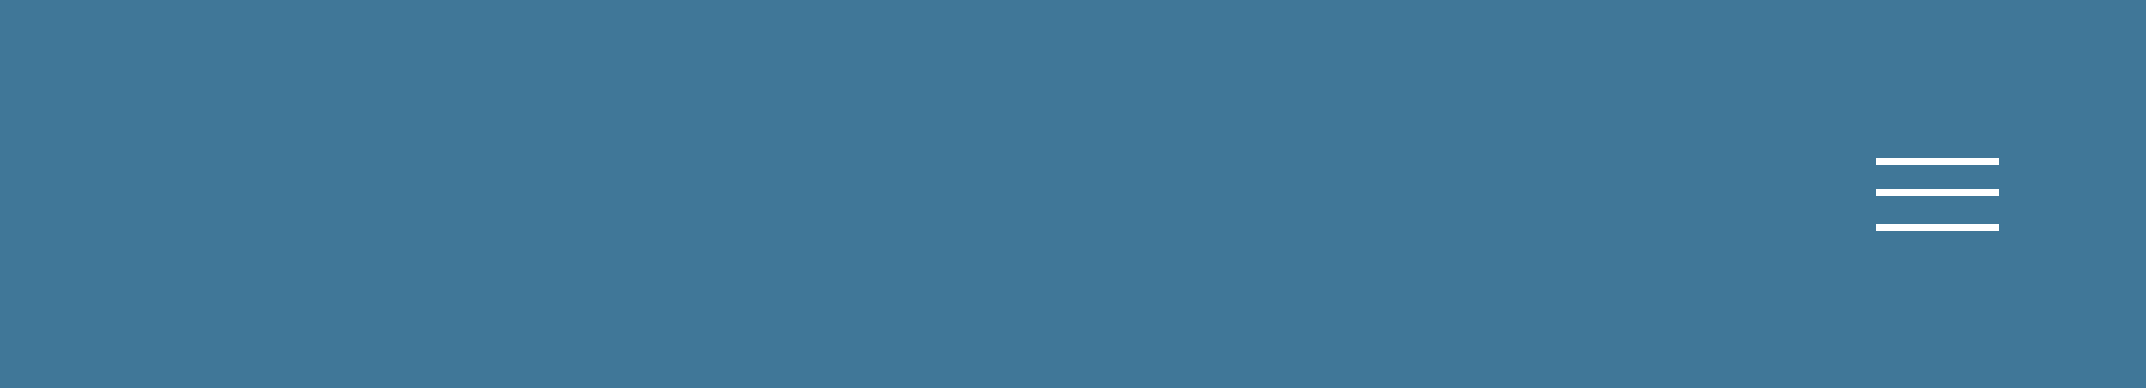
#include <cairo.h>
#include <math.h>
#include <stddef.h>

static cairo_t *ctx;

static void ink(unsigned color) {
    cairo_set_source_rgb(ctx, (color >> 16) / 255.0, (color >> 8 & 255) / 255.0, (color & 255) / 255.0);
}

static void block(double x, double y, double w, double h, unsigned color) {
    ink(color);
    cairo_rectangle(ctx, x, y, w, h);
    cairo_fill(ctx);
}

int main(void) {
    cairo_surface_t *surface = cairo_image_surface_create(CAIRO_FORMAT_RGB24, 2146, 388);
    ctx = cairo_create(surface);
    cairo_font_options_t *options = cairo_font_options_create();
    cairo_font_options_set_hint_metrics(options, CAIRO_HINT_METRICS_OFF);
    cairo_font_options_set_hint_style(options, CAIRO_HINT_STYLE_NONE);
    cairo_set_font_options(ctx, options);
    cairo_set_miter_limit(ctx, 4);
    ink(0x407798);
    cairo_paint(ctx);
    block(1876, 158, 123, 7, 0xffffff);
    block(1876, 189, 123, 7, 0xffffff);
    block(1876, 224, 123, 7, 0xffffff);
    cairo_surface_write_to_png(surface, "screenshot.png");
    cairo_font_options_destroy(options);
    cairo_destroy(ctx);
    cairo_surface_destroy(surface);
    return 0;
}
